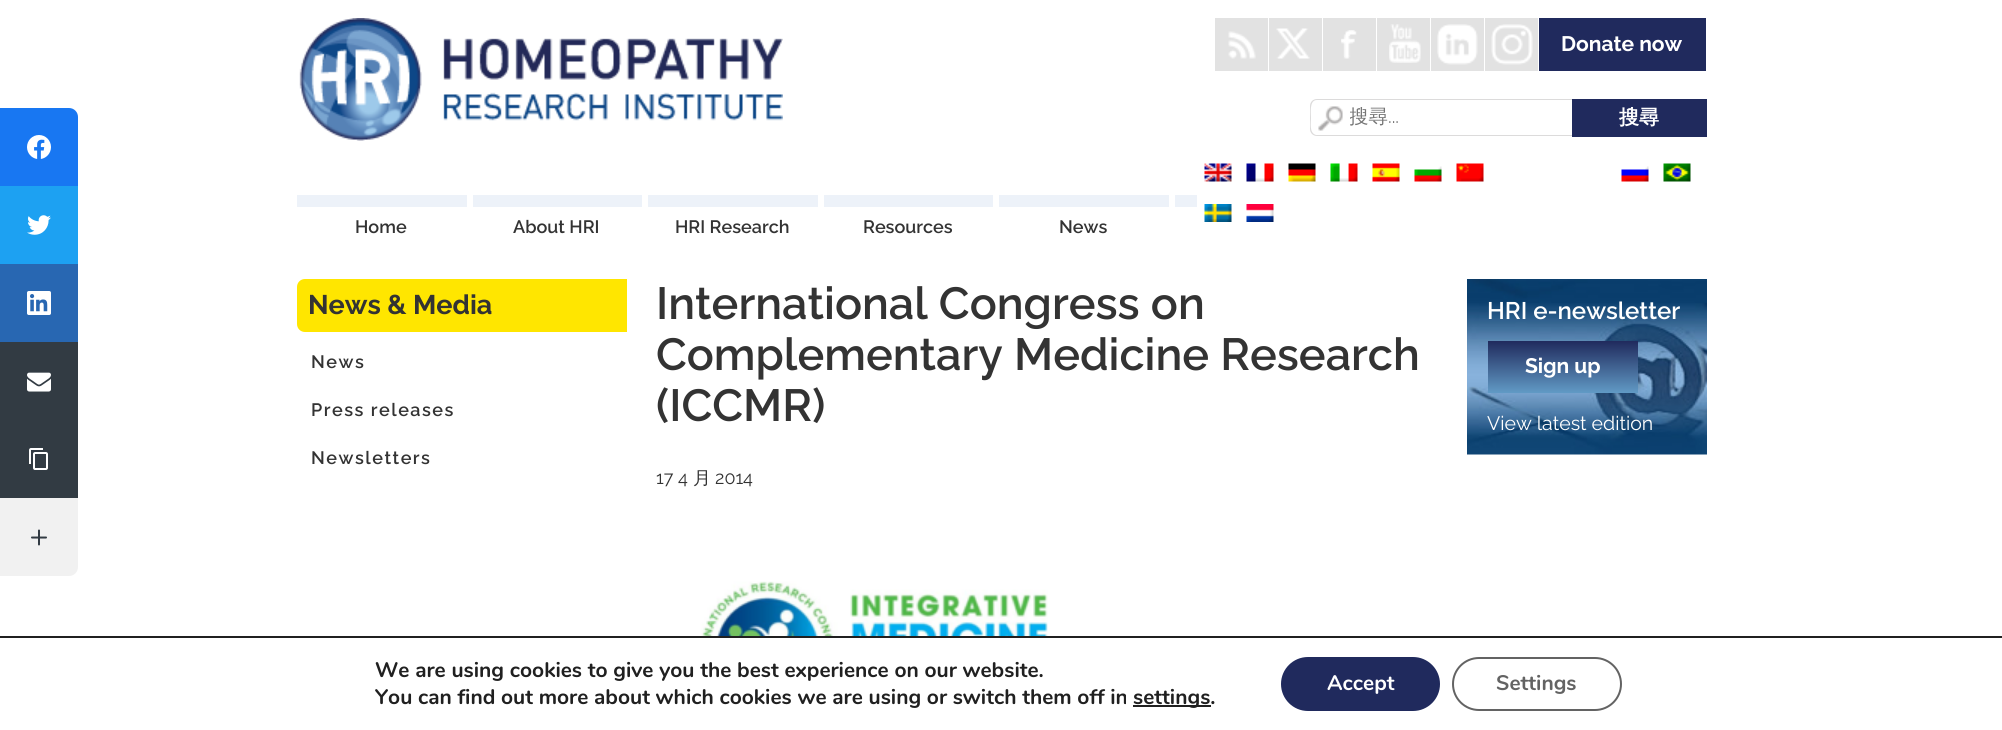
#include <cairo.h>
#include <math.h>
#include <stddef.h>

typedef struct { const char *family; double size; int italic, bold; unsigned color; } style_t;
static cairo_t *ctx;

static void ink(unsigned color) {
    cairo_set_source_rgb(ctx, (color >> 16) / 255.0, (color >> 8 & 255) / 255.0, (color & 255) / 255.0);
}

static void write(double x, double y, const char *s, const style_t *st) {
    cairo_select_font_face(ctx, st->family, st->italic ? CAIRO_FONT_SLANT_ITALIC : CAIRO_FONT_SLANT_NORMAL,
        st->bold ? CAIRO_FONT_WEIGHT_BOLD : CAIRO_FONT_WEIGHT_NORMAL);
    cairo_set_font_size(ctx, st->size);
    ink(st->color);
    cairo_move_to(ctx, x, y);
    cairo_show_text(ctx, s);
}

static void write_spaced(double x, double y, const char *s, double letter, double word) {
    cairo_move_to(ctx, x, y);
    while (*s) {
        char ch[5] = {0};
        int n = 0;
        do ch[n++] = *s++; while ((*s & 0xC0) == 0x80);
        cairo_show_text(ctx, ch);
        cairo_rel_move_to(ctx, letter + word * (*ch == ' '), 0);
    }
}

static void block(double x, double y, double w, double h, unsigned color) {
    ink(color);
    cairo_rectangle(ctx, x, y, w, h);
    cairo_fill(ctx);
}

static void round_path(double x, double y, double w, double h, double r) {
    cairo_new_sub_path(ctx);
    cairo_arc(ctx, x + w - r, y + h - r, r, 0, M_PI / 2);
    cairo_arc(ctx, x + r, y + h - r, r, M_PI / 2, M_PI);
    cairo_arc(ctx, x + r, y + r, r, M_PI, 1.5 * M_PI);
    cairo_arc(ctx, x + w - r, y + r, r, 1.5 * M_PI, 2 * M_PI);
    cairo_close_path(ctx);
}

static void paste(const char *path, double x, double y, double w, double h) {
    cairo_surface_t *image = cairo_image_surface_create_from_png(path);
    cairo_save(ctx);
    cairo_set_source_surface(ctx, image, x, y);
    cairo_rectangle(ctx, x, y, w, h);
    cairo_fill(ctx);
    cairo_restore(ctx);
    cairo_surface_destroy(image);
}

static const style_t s1 = {"Raleway", 21, 0, 1, 0xffffff};
static const style_t s2 = {"WenQuanYi Zen Hei Medium", 19.5, 0, 0, 0x757575};
static const style_t s3 = {"Raleway", 19.5, 0, 0, 0x757575};
static const style_t s4 = {"WenQuanYi Zen Hei", 20, 0, 1, 0xffffff};
static const style_t s5 = {"Raleway SemiBold", 18, 0, 0, 0x333333};
static const style_t s6 = {"Raleway", 27, 0, 1, 0x333333};
static const style_t s7 = {"Raleway SemiBold", 45, 0, 0, 0x333333};
static const style_t s8 = {"Raleway", 18, 0, 0, 0x333333};
static const style_t s9 = {"WenQuanYi Zen Hei Medium", 18, 0, 0, 0x333333};
static const style_t s10 = {"Raleway SemiBold", 24, 0, 0, 0xffffff};
static const style_t s11 = {"Raleway", 19.5, 0, 0, 0xffffff};
static const style_t s12 = {"Nunito", 21, 0, 1, 0x202020};
static const style_t s13 = {"Nunito", 21, 0, 1, 0xffffff};
static const style_t s14 = {"Nunito", 21, 0, 1, 0x636363};

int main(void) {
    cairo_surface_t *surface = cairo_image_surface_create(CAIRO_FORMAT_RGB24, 2002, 730);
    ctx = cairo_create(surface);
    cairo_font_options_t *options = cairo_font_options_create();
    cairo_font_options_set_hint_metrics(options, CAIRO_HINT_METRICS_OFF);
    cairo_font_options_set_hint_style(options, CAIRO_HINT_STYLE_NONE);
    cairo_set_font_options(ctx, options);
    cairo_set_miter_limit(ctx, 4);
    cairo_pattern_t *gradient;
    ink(0xffffff);
    cairo_paint(ctx);
    ink(0x1877f2);
    cairo_new_path(ctx);
    cairo_move_to(ctx, 0, 108);
    cairo_line_to(ctx, 69, 108);
    cairo_curve_to(ctx, 74, 108, 78, 112, 78, 117);
    cairo_line_to(ctx, 78, 186);
    cairo_line_to(ctx, 0, 186);
    cairo_close_path(ctx);
    cairo_fill(ctx);
    paste("pic1.png", 27, 135, 24, 24);
    block(0, 186, 78, 78, 0x1da1f2);
    paste("pic2.png", 27, 215, 24, 20);
    block(0, 264, 78, 78, 0x2867b2);
    paste("pic3.png", 27, 291, 24, 24);
    block(0, 342, 78, 156, 0x323b43);
    paste("pic4.png", 27, 372, 24, 20);
    paste("pic5.png", 29, 448, 19, 22);
    ink(0xf1f1f1);
    cairo_new_path(ctx);
    cairo_move_to(ctx, 0, 498);
    cairo_line_to(ctx, 78, 498);
    cairo_line_to(ctx, 78, 567);
    cairo_curve_to(ctx, 78, 572, 74, 576, 69, 576);
    cairo_line_to(ctx, 0, 576);
    cairo_close_path(ctx);
    cairo_fill(ctx);
    paste("pic6.png", 31, 529, 16, 17);
    paste("pic7.png", 299, 18, 484, 123);
    block(1215, 18, 53, 53, 0xe2e2e2);
    paste("pic8.png", 1228, 31, 28, 28);
    block(1269, 18, 53, 53, 0xe2e2e2);
    paste("pic9.png", 1276, 28, 34, 31);
    block(1323, 18, 53, 53, 0xe2e2e2);
    paste("pic10.png", 1341, 30, 16, 29);
    block(1377, 18, 53, 53, 0xe2e2e2);
    paste("pic11.png", 1389, 24, 32, 39);
    block(1431, 18, 53, 53, 0xe2e2e2);
    paste("pic12.png", 1437, 24, 41, 41);
    block(1485, 18, 53, 53, 0xe2e2e2);
    paste("pic13.png", 1491, 24, 42, 41);
    block(1539, 18, 167, 53, 0x202a5d);
    write(1561, 51, "Donate now", &s1);
    paste("pic14.png", 1318, 106, 25, 25);
    ink(0xdcdbdb);
    cairo_set_fill_rule(ctx, CAIRO_FILL_RULE_EVEN_ODD);
    cairo_new_path(ctx);
    cairo_move_to(ctx, 1317, 99);
    cairo_line_to(ctx, 1572, 99);
    cairo_line_to(ctx, 1572, 136);
    cairo_line_to(ctx, 1317, 136);
    cairo_curve_to(ctx, 1313, 136, 1310, 133, 1310, 129);
    cairo_line_to(ctx, 1310, 106);
    cairo_curve_to(ctx, 1310, 102, 1313, 99, 1317, 99);
    cairo_close_path(ctx);
    cairo_move_to(ctx, 1317, 100);
    cairo_line_to(ctx, 1572, 100);
    cairo_line_to(ctx, 1572, 135);
    cairo_line_to(ctx, 1316, 135);
    cairo_curve_to(ctx, 1309, 133, 1311, 123, 1311, 118);
    cairo_curve_to(ctx, 1311, 113, 1309, 100, 1317, 100);
    cairo_close_path(ctx);
    cairo_fill(ctx);
    cairo_save(ctx);
    cairo_set_fill_rule(ctx, CAIRO_FILL_RULE_WINDING);
    cairo_rectangle(ctx, 1350, 104, 197, 27);
    cairo_clip(ctx);
    write(1349, 123, "搜尋", &s2);
    cairo_restore(ctx);
    write(1388, 123, "...", &s3);
    block(1572, 99, 135, 38, 0x202a5d);
    write(1619, 124, "搜尋", &s4);
    paste("pic15.png", 1204, 163, 28, 19);
    paste("pic16.png", 1246, 163, 28, 19);
    paste("pic17.png", 1288, 163, 28, 19);
    paste("pic18.png", 1330, 163, 28, 19);
    paste("pic19.png", 1372, 163, 28, 19);
    paste("pic20.png", 1414, 166, 28, 16);
    paste("pic21.png", 1456, 163, 28, 19);
    paste("pic22.png", 1621, 166, 28, 16);
    paste("pic23.png", 1663, 163, 28, 19);
    paste("pic24.png", 1204, 204, 28, 18);
    paste("pic25.png", 1246, 204, 28, 18);
    block(1175, 195, 22, 12, 0xedf2f9);
    block(297, 195, 170, 12, 0xedf2f9);
    write(355, 233, "Home", &s5);
    block(473, 195, 169, 12, 0xedf2f9);
    write(513, 233, "About HRI", &s5);
    block(648, 195, 170, 12, 0xedf2f9);
    write(675, 233, "HRI Research", &s5);
    block(824, 195, 169, 12, 0xedf2f9);
    write(863, 233, "Resources", &s5);
    block(999, 195, 170, 12, 0xedf2f9);
    write(1059, 233, "News", &s5);
    ink(0xffe600);
    cairo_new_path(ctx);
    cairo_move_to(ctx, 305, 279);
    cairo_line_to(ctx, 627, 279);
    cairo_line_to(ctx, 627, 332);
    cairo_line_to(ctx, 305, 332);
    cairo_curve_to(ctx, 300.5, 332, 297, 328.5, 297, 324);
    cairo_line_to(ctx, 297, 287);
    cairo_curve_to(ctx, 297, 282.5, 300.5, 279, 305, 279);
    cairo_close_path(ctx);
    cairo_fill(ctx);
    write(308, 314, "News & Media", &s6);
    cairo_select_font_face(ctx, "Raleway SemiBold", CAIRO_FONT_SLANT_NORMAL, CAIRO_FONT_WEIGHT_NORMAL);
    cairo_set_font_size(ctx, 18);
    write_spaced(311, 368, "News", 1.5, 0);
    write_spaced(311, 416, "Press releases", 1.5, 0);
    write_spaced(311, 464, "Newsletters", 1.5, 0);
    write(656, 319, "International Congress on", &s7);
    write(656, 370, "Complementary Medicine Research", &s7);
    write(656, 421, "(ICCMR)", &s7);
    write(656, 484, "17 4", &s8);
    write(693, 484, "月", &s9);
    write(715, 484, "2014", &s8);
    paste("pic26.png", 700, 581, 348, 55);
    paste("pic27.png", 1467, 279, 240, 176);
    write(1487, 319, "HRI e-newsletter", &s10);
    gradient = cairo_pattern_create_linear(1563, 341, 1563, 393);
    cairo_pattern_add_color_stop_rgba(gradient, 0, 0.125, 0.165, 0.365, 1);
    cairo_pattern_add_color_stop_rgba(gradient, 1, 0.38, 0.604, 0.773, 1);
    cairo_set_source(ctx, gradient);
    cairo_pattern_destroy(gradient);
    cairo_rectangle(ctx, 1488, 341, 150, 52);
    cairo_fill(ctx);
    write(1525, 373, "Sign up", &s1);
    write(1487, 430, "View latest edition", &s11);
    block(0, 636, 2002, 2, 0x202020);
    write(375, 677, "We are using cookies to give you the best experience on our website.", &s12);
    write(375, 704, "You can find out more about which cookies we are using or switch them off in", &s12);
    block(1133, 705, 78, 2, 0x202020);
    write(1133, 704, "settings.", &s12);
    ink(0x202a5d);
    round_path(1281, 657, 159, 54, 27);
    cairo_fill(ctx);
    write(1327, 690, "Accept", &s13);
    round_path(1453, 658, 168, 52, 26);
    ink(0x636363);
    cairo_stroke(ctx);
    write(1496, 690, "Settings", &s14);
    cairo_surface_write_to_png(surface, "screenshot.png");
    cairo_font_options_destroy(options);
    cairo_destroy(ctx);
    cairo_surface_destroy(surface);
    return 0;
}
